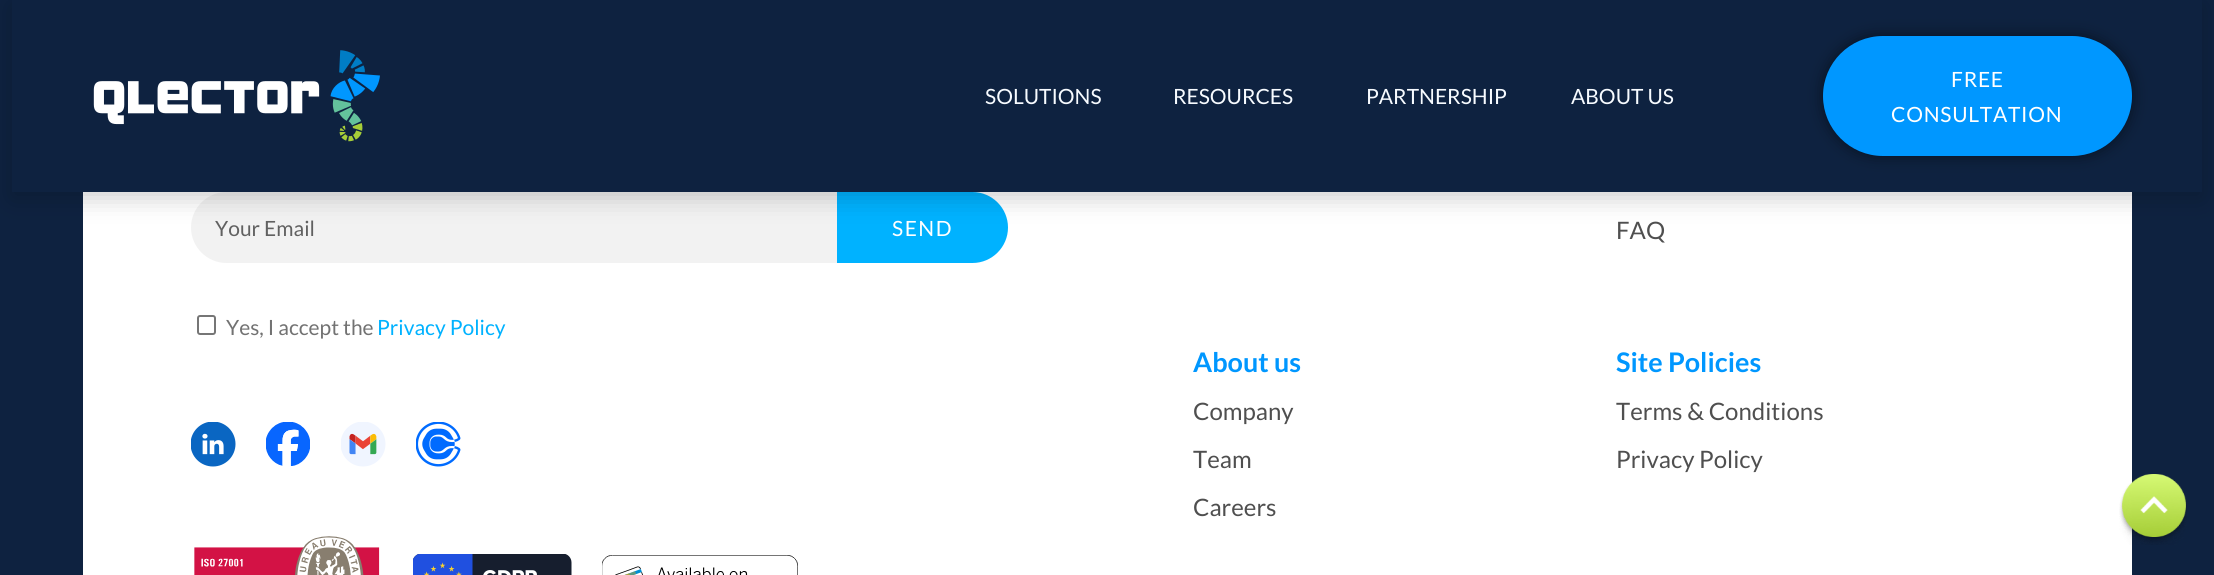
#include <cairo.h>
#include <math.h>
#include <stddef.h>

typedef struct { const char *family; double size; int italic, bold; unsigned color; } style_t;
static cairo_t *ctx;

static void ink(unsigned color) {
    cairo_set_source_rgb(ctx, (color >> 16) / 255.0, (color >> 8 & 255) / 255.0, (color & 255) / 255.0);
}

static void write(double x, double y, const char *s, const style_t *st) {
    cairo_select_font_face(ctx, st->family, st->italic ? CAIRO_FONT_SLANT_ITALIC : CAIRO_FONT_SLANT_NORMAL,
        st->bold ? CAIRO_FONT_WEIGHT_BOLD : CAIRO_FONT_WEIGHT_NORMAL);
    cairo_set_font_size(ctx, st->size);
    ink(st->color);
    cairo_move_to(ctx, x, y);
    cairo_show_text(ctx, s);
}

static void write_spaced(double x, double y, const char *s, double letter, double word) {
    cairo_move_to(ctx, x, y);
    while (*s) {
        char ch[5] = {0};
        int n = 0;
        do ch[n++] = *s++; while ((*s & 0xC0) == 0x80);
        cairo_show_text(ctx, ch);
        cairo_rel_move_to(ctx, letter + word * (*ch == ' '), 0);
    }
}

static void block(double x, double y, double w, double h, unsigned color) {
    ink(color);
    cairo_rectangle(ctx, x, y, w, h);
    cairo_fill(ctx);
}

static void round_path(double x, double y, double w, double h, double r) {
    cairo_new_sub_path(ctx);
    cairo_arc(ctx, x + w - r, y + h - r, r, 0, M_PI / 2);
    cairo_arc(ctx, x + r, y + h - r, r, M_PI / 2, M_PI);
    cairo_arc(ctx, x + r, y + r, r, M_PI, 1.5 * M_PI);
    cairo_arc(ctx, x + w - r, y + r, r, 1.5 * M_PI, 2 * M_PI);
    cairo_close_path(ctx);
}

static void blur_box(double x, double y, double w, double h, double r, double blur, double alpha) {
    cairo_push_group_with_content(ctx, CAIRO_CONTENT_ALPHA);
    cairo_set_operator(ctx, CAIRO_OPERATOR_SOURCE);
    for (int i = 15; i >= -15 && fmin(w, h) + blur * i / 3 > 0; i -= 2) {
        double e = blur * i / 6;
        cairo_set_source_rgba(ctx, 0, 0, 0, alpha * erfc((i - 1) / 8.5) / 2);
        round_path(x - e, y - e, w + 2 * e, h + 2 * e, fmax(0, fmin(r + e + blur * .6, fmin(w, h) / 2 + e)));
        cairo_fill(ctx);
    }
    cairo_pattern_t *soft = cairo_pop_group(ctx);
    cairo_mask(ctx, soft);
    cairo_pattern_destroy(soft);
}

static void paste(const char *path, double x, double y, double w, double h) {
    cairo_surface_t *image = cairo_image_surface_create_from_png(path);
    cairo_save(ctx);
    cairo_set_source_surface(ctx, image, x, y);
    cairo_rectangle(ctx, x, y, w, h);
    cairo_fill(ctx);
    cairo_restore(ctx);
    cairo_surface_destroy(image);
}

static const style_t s1 = {"Lato", 21, 0, 0, 0xf7fbff};
static const style_t s2 = {"Lato", 21, 0, 0, 0x616161};
static const style_t s3 = {"Lato", 21, 0, 0, 0x727272};
static const style_t s4 = {"Lato", 21, 0, 0, 0x00b2ff};
static const style_t s5 = {"Lato", 24, 0, 0, 0x4f4f4f};
static const style_t s6 = {"Lato", 27, 0, 1, 0x0097ff};

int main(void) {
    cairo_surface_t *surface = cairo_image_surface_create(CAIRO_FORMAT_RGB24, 2214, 575);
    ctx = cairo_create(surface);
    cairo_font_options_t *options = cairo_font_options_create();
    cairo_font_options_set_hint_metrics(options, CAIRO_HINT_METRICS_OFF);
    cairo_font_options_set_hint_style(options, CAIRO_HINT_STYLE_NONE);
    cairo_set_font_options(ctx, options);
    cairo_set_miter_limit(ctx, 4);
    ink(0x0e2240);
    cairo_paint(ctx);
    block(83, 192, 2049, 383, 0xffffff);
    ink(0xf2f2f2);
    cairo_new_path(ctx);
    cairo_move_to(ctx, 226.5, 192);
    cairo_line_to(ctx, 837, 192);
    cairo_line_to(ctx, 837, 263);
    cairo_line_to(ctx, 226.5, 263);
    cairo_curve_to(ctx, 207, 263, 191, 247, 191, 227.5);
    cairo_curve_to(ctx, 191, 208, 207, 192, 226.5, 192);
    cairo_close_path(ctx);
    cairo_fill(ctx);
    ink(0x00b2ff);
    cairo_new_path(ctx);
    cairo_move_to(ctx, 837, 192);
    cairo_line_to(ctx, 972.5, 192);
    cairo_curve_to(ctx, 992, 192, 1008, 208, 1008, 227.5);
    cairo_curve_to(ctx, 1008, 247, 992, 263, 972.5, 263);
    cairo_line_to(ctx, 837, 263);
    cairo_close_path(ctx);
    cairo_fill(ctx);
    ink(0x000000);
    blur_box(12, 6, 2190, 192, 0, 12, 0.2);
    block(12, 0, 2190, 192, 0x0e2240);
    paste("pic1.png", 93, 50, 287, 92);
    write(985, 104, "SOLUTIONS", &s1);
    write(1173, 104, "RESOURCES", &s1);
    write(1366, 104, "PARTNERSHIP", &s1);
    write(1571, 104, "ABOUT US", &s1);
    ink(0x000000);
    blur_box(1823, 36, 309, 120, 60, 7.5, 0.5);
    ink(0x0097ff);
    round_path(1824.5, 37.5, 306, 117, 58.5);
    cairo_fill_preserve(ctx);
    cairo_set_line_width(ctx, 3);
    cairo_stroke(ctx);
    ink(0xffffff);
    write_spaced(1951, 87, "FREE", 0.75, 0);
    write_spaced(1891, 122, "CONSULTATION", 0.75, 0);
    write(215, 236, "Your Email", &s2);
    ink(0xffffff);
    write_spaced(892, 236, "SEND", 1.5, 0);
    round_path(198, 316, 17, 18, 2);
    ink(0x767676);
    cairo_set_line_width(ctx, 2);
    cairo_stroke(ctx);
    write(226, 335, "Yes, I accept the", &s3);
    write(377, 335, "Privacy Policy", &s4);
    paste("pic2.png", 191, 422, 45, 45);
    paste("pic3.png", 266, 422, 44, 44);
    paste("pic4.png", 341, 422, 45, 45);
    paste("pic5.png", 416, 422, 45, 45);
    paste("pic6.png", 194, 536, 186, 39);
    paste("pic7.png", 413, 554, 159, 21);
    paste("pic8.png", 602, 555, 196, 20);
    write(1616, 239, "FAQ", &s5);
    write(1193, 372, "About us", &s6);
    write(1193, 420, "Company", &s5);
    write(1193, 468, "Team", &s5);
    write(1193, 516, "Careers", &s5);
    write(1616, 372, "Site Policies", &s6);
    write(1616, 420, "Terms & Conditions", &s5);
    write(1616, 468, "Privacy Policy", &s5);
    paste("pic9.png", 2119, 474, 68, 71);
    cairo_surface_write_to_png(surface, "screenshot.png");
    cairo_font_options_destroy(options);
    cairo_destroy(ctx);
    cairo_surface_destroy(surface);
    return 0;
}
